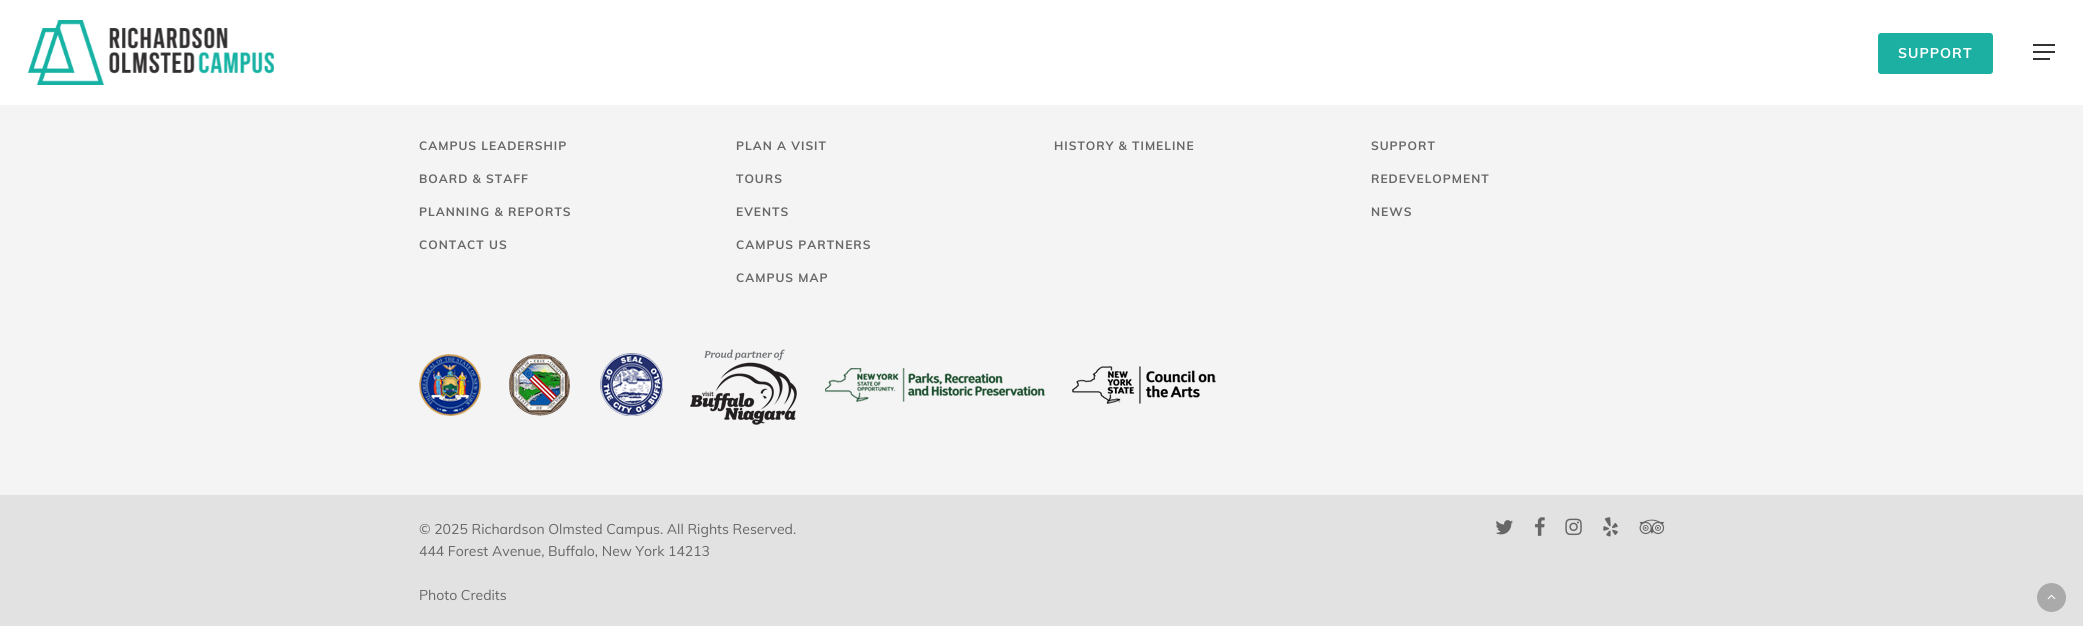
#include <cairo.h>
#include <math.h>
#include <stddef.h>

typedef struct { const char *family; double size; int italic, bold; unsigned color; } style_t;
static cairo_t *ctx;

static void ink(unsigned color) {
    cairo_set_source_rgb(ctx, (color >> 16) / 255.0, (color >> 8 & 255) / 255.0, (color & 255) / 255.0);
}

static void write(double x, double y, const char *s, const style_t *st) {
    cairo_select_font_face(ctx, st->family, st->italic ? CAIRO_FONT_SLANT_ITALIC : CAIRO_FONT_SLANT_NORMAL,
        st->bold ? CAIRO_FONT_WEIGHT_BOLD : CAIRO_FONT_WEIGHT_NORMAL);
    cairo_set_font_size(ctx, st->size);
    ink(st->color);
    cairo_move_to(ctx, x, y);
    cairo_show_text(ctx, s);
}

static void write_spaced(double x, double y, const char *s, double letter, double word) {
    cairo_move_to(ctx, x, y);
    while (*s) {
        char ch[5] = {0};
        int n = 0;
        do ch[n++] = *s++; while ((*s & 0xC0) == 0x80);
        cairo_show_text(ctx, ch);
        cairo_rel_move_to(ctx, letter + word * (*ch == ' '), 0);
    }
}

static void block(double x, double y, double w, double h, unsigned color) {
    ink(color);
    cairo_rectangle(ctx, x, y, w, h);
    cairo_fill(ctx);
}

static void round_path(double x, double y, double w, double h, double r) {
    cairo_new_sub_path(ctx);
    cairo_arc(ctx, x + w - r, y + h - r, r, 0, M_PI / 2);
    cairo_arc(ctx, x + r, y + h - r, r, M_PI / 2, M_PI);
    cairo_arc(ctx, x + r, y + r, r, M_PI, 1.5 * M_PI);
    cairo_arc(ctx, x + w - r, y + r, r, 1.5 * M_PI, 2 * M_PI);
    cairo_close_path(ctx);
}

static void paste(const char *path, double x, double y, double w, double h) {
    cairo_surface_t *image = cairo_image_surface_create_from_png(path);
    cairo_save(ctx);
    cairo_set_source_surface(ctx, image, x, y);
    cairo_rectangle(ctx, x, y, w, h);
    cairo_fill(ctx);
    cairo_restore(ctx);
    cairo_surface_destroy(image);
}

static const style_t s1 = {"Muli", 14, 0, 0, 0x676767};

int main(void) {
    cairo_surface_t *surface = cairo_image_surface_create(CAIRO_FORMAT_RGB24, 2083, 626);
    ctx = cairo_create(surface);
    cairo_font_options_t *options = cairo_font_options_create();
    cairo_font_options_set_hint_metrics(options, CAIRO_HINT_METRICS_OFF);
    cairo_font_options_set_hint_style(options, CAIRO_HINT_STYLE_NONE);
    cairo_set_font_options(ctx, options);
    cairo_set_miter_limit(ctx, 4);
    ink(0xf4f4f4);
    cairo_paint(ctx);
    block(0, 0, 2083, 105, 0xffffff);
    paste("pic1.png", 28, 20, 246, 65);
    ink(0x1cb0a2);
    round_path(1878, 33, 115, 41, 3);
    cairo_fill(ctx);
    cairo_select_font_face(ctx, "Muli", CAIRO_FONT_SLANT_NORMAL, CAIRO_FONT_WEIGHT_BOLD);
    cairo_set_font_size(ctx, 14);
    ink(0xffffff);
    write_spaced(1898, 58, "SUPPORT", 1, 0);
    block(2033, 44, 22, 2, 0x333333);
    block(2033, 58, 17, 2, 0x333333);
    block(2033, 51, 22, 2, 0x333333);
    cairo_set_font_size(ctx, 12);
    ink(0x676767);
    write_spaced(419, 150, "CAMPUS LEADERSHIP", 1, 0);
    write_spaced(419, 183, "BOARD & STAFF", 1, 0);
    write_spaced(419, 216, "PLANNING & REPORTS", 1, 0);
    write_spaced(419, 249, "CONTACT US", 1, 0);
    write_spaced(736, 150, "PLAN A VISIT", 1, 0);
    write_spaced(736, 183, "TOURS", 1, 0);
    write_spaced(736, 216, "EVENTS", 1, 0);
    write_spaced(736, 249, "CAMPUS PARTNERS", 1, 0);
    write_spaced(736, 282, "CAMPUS MAP", 1, 0);
    write_spaced(1054, 150, "HISTORY & TIMELINE", 1, 0);
    write_spaced(1371, 150, "SUPPORT", 1, 0);
    write_spaced(1371, 183, "REDEVELOPMENT", 1, 0);
    write_spaced(1371, 216, "NEWS", 1, 0);
    paste("pic2.png", 419, 354, 62, 62);
    paste("pic3.png", 509, 354, 61, 62);
    paste("pic4.png", 600, 353, 63, 63);
    paste("pic5.png", 690, 349, 107, 76);
    paste("pic6.png", 825, 368, 220, 34);
    paste("pic7.png", 1072, 366, 144, 38);
    block(0, 495, 2083, 131, 0xe2e2e2);
    write(419, 534, "© 2025 Richardson Olmsted Campus. All Rights Reserved.", &s1);
    write(419, 556, "444 Forest Avenue, Buffalo, New York 14213", &s1);
    write(419, 600, "Photo Credits", &s1);
    paste("pic8.png", 1495, 520, 18, 15);
    paste("pic9.png", 1535, 517, 10, 19);
    paste("pic10.png", 1565, 518, 17, 18);
    paste("pic11.png", 1603, 517, 15, 20);
    paste("pic12.png", 1639, 519, 26, 16);
    ink(0xaaaaaa);
    cairo_arc(ctx, 2051.5, 597.5, 14.5, 0, 2 * M_PI);
    cairo_fill(ctx);
    paste("pic13.png", 2047, 594, 9, 6);
    cairo_surface_write_to_png(surface, "screenshot.png");
    cairo_font_options_destroy(options);
    cairo_destroy(ctx);
    cairo_surface_destroy(surface);
    return 0;
}
